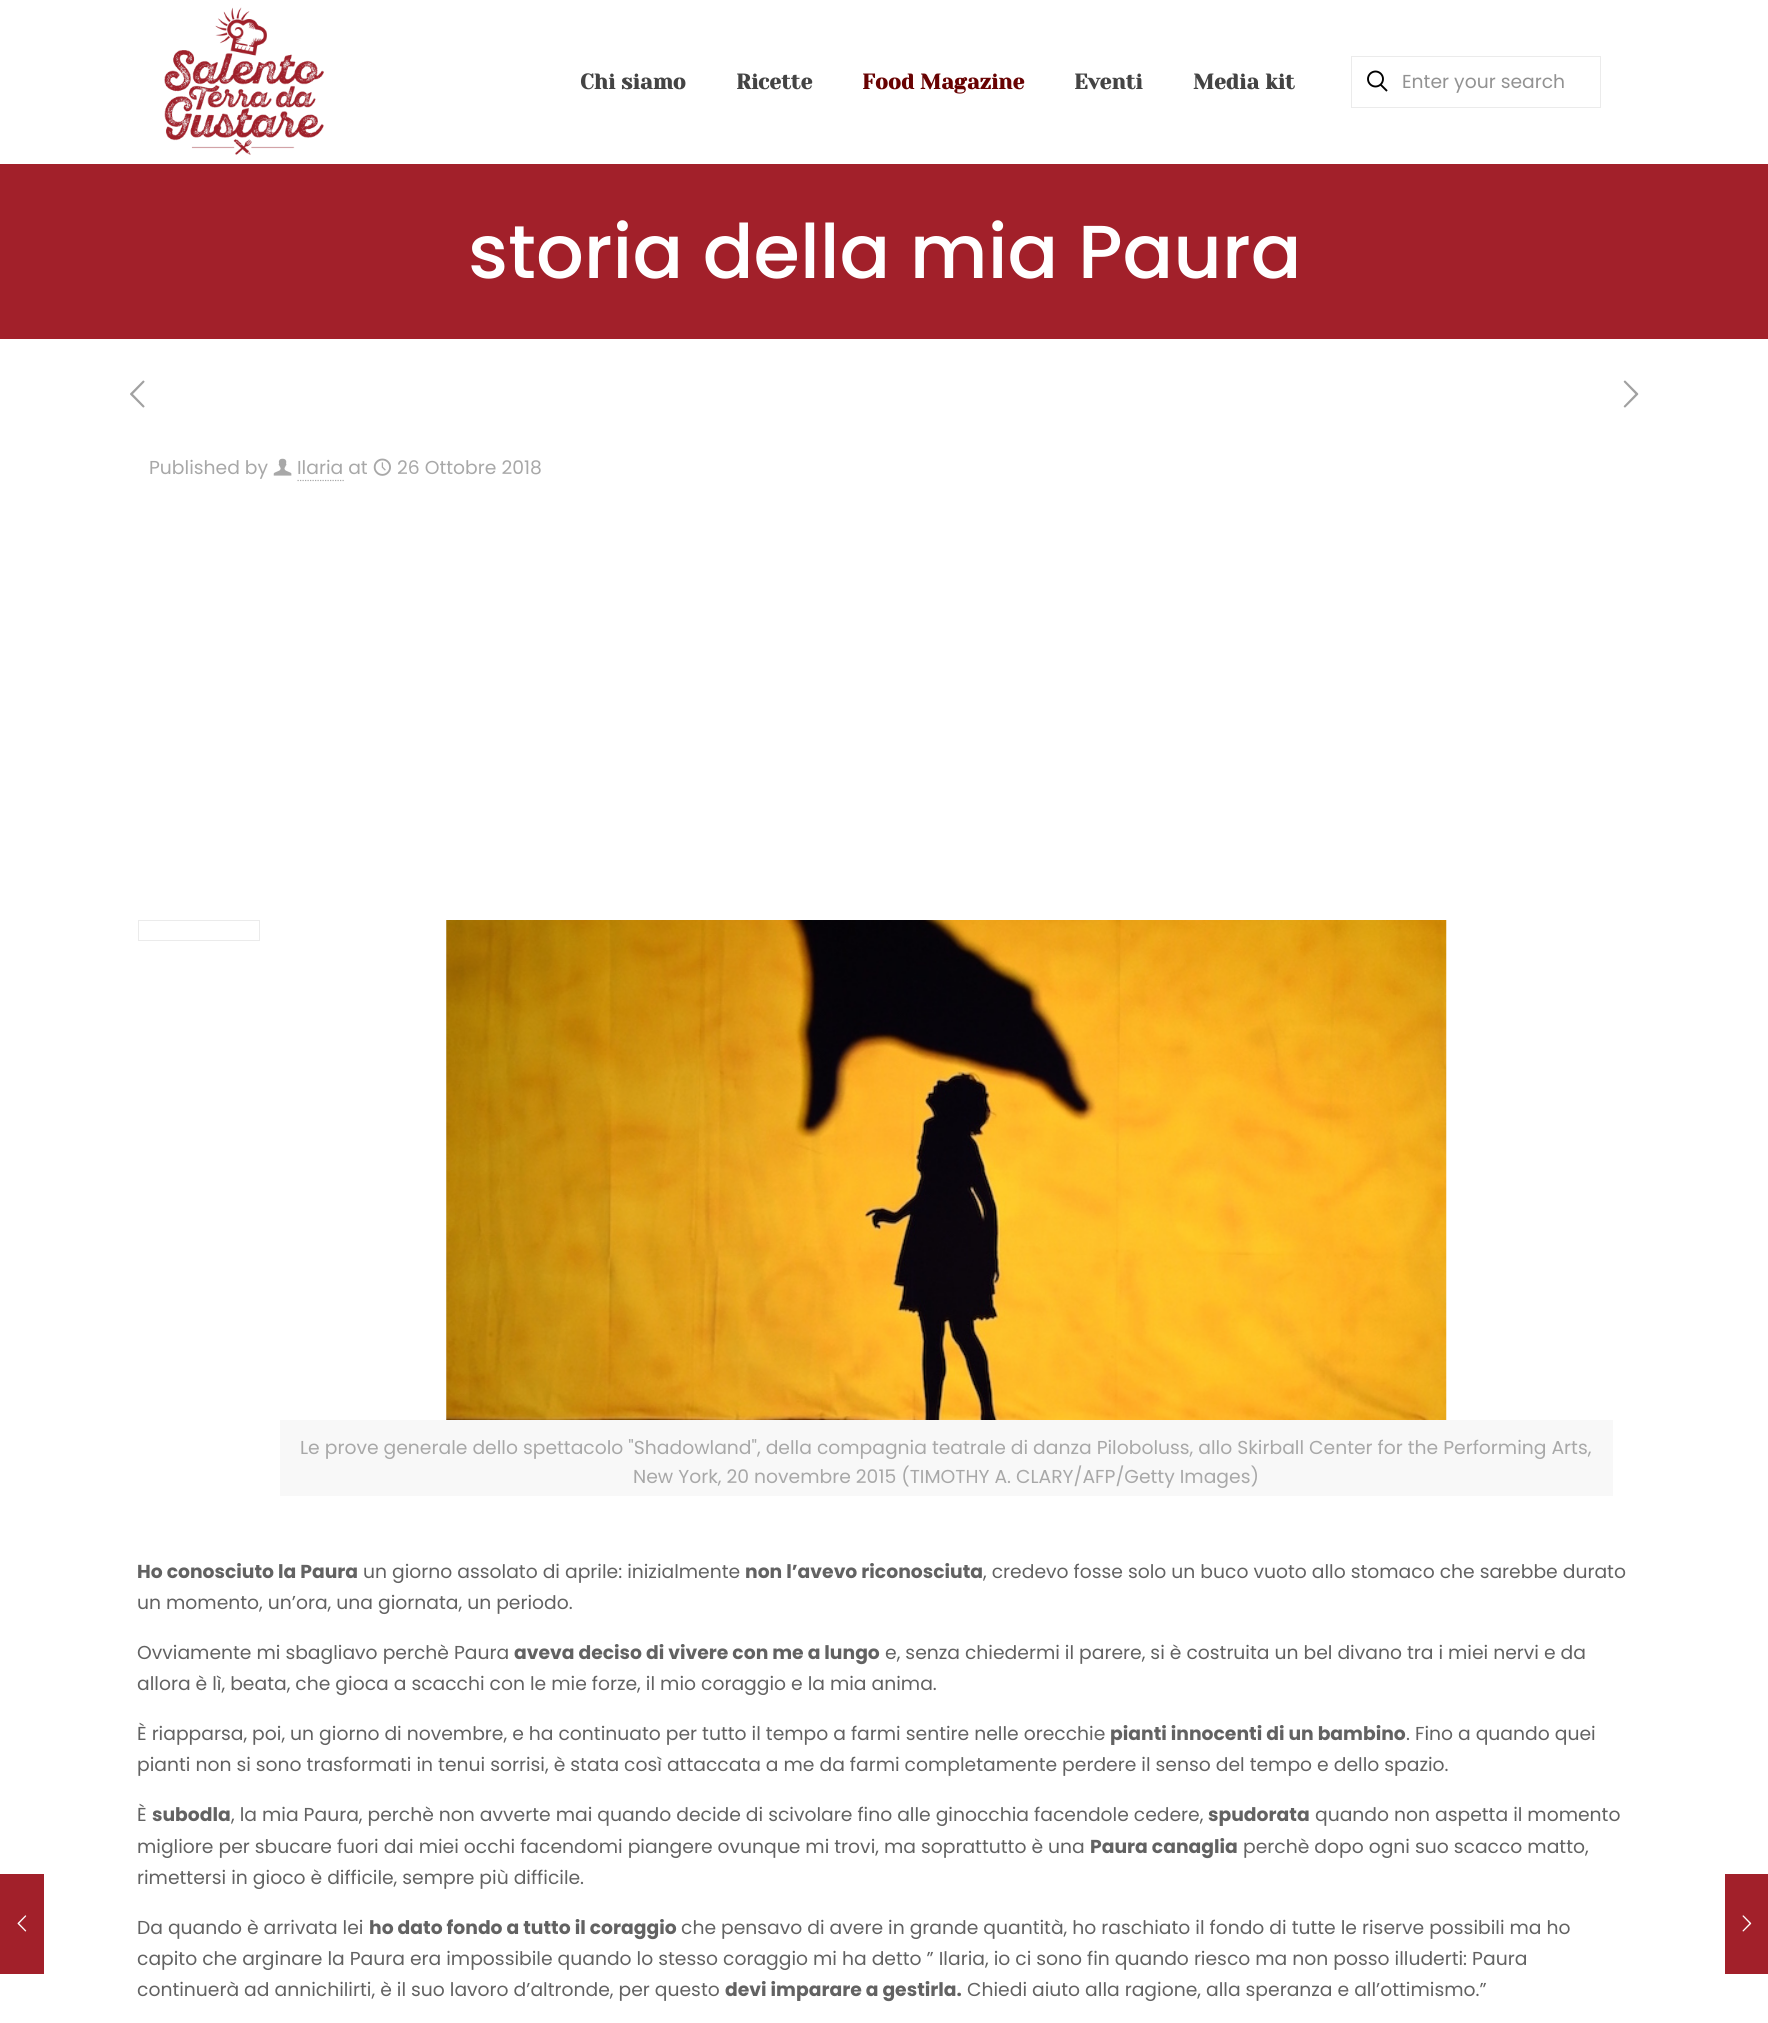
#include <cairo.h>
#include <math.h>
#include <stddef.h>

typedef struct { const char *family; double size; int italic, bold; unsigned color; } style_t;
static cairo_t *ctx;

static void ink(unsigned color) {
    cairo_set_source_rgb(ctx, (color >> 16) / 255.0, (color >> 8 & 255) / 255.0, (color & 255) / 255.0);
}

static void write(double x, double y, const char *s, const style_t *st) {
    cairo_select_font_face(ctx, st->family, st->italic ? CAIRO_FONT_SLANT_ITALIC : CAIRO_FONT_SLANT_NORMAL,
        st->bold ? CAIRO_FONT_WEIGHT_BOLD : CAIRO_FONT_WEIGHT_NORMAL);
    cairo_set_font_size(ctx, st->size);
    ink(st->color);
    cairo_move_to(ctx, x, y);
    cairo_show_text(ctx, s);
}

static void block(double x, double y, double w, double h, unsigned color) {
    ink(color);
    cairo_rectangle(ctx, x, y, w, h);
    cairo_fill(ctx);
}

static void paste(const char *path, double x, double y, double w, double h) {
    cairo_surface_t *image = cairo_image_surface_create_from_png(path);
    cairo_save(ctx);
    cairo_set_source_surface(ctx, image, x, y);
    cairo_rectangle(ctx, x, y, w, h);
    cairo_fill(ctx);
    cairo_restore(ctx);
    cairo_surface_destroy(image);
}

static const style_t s1 = {"Yeseva One", 21.25, 0, 1, 0x444444};
static const style_t s2 = {"Yeseva One", 21.25, 0, 1, 0x680202};
static const style_t s3 = {"Poppins", 18.75, 0, 0, 0x929292};
static const style_t s4 = {"Poppins Medium", 75, 0, 0, 0xffffff};
static const style_t s5 = {"Poppins", 18.75, 0, 0, 0xa8a8a8};
static const style_t s6 = {"Poppins", 18.75, 0, 1, 0x626262};
static const style_t s7 = {"Poppins", 18.75, 0, 0, 0x626262};

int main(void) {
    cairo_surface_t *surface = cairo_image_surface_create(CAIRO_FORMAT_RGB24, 1768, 2023);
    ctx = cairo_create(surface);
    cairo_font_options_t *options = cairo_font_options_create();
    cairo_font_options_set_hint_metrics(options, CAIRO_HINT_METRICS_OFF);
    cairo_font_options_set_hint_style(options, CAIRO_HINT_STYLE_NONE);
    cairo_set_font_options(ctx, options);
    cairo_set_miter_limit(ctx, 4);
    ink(0xffffff);
    cairo_paint(ctx);
    block(0, 1874, 44, 100, 0xa2202a);
    paste("pic1.png", 17, 1915, 10, 17);
    block(0, 164, 1768, 175, 0xa2202a);
    paste("pic2.png", 164, 7, 160, 148);
    write(580, 89, "Chi siamo", &s1);
    write(736, 89, "Ricette", &s1);
    write(862, 89, "Food Magazine", &s2);
    write(1074, 89, "Eventi", &s1);
    write(1193, 89, "Media kit", &s1);
    cairo_rectangle(ctx, 1351.5, 56.5, 249, 51);
    ink(0xebebeb);
    cairo_set_line_width(ctx, 1);
    cairo_stroke(ctx);
    cairo_arc(ctx, 1375.5, 79, 7.5, 0, 2 * M_PI);
    ink(0x000000);
    cairo_set_line_width(ctx, 1.9);
    cairo_stroke(ctx);
    cairo_new_path(ctx);
    cairo_move_to(ctx, 1380.5, 84.5);
    cairo_line_to(ctx, 1387, 91);
    cairo_stroke(ctx);
    write(1402, 88, "Enter your search", &s3);
    write(468, 278, "storia della mia Paura", &s4);
    paste("pic3.png", 130, 380, 15, 28);
    paste("pic4.png", 1623, 380, 16, 28);
    write(149, 474, "Published by", &s5);
    paste("pic5.png", 273, 458, 19, 18);
    write(297, 474, "Ilaria at", &s5);
    cairo_new_path(ctx);
    cairo_move_to(ctx, 297.5, 480.5);
    cairo_line_to(ctx, 344, 480.5);
    cairo_set_line_width(ctx, 1.2);
    cairo_set_dash(ctx, (double[]){1.25, 1.25}, 2, 0);
    cairo_stroke(ctx);
    paste("pic6.png", 373, 458, 18, 18);
    write(397, 474, "26 Ottobre 2018", &s5);
    cairo_rectangle(ctx, 138.5, 920.5, 121, 20);
    ink(0xebebeb);
    cairo_set_line_width(ctx, 1);
    cairo_set_dash(ctx, NULL, 0, 0);
    cairo_stroke(ctx);
    paste("pic7.png", 446, 920, 1001, 500);
    block(280, 1420, 1333, 76, 0xf8f8f8);
    write(300, 1454, "Le prove generale dello spettacolo \"Shadowland\", della compagnia teatrale di danza Piloboluss, allo Skirball Center for the Performing Arts,", &s5);
    write(633, 1483, "New York, 20 novembre 2015 (TIMOTHY A. CLARY/AFP/Getty Images)", &s5);
    write(137, 1578, "Ho conosciuto la Paura", &s6);
    write(363, 1578, "un giorno assolato di aprile: inizialmente", &s7);
    write(745, 1578, "non l’avevo riconosciuta", &s6);
    write(983, 1578, ", credevo fosse solo un buco vuoto allo stomaco che sarebbe durato", &s7);
    write(137, 1609, "un momento, un’ora, una giornata, un periodo.", &s7);
    write(137, 1659, "Ovviamente mi sbagliavo perchè Paura", &s7);
    write(514, 1659, "aveva deciso di vivere con me a lungo", &s6);
    write(885, 1659, "e, senza chiedermi il parere, si è costruita un bel divano tra i miei nervi e da", &s7);
    write(137, 1690, "allora è lì, beata, che gioca a scacchi con le mie forze, il mio coraggio e la mia anima.", &s7);
    write(137, 1740, "È riapparsa, poi, un giorno di novembre, e ha continuato per tutto il tempo a farmi sentire nelle orecchie", &s7);
    write(1110, 1740, "pianti innocenti di un bambino", &s6);
    write(1406, 1740, ". Fino a quando quei", &s7);
    write(137, 1771, "pianti non si sono trasformati in tenui sorrisi, è stata così attaccata a me da farmi completamente perdere il senso del tempo e dello spazio.", &s7);
    write(137, 1821, "È", &s7);
    write(152, 1821, "subodla", &s6);
    write(231, 1821, ", la mia Paura, perchè non avverte mai quando decide di scivolare fino alle ginocchia facendole cedere,", &s7);
    write(1208, 1821, "spudorata", &s6);
    write(1315, 1821, "quando non aspetta il momento", &s7);
    write(137, 1853, "migliore per sbucare fuori dai miei occhi facendomi piangere ovunque mi trovi, ma soprattutto è una", &s7);
    write(1090, 1853, "Paura canaglia", &s6);
    write(1243, 1853, "perchè dopo ogni suo scacco matto,", &s7);
    write(137, 1884, "rimettersi in gioco è difficile, sempre più difficile.", &s7);
    write(137, 1934, "Da quando è arrivata lei", &s7);
    write(369, 1934, "ho dato fondo a tutto il coraggio", &s6);
    write(681, 1934, "che pensavo di avere in grande quantità, ho raschiato il fondo di tutte le riserve possibili ma ho", &s7);
    write(137, 1965, "capito che arginare la Paura era impossibile quando lo stesso coraggio mi ha detto ” Ilaria, io ci sono fin quando riesco ma non posso illuderti: Paura", &s7);
    write(137, 1996, "continuerà ad annichilirti, è il suo lavoro d’altronde, per questo", &s7);
    write(725, 1996, "devi imparare a gestirla.", &s6);
    write(967, 1996, "Chiedi aiuto alla ragione, alla speranza e all’ottimismo.”", &s7);
    block(1725, 1874, 43, 100, 0xa2202a);
    paste("pic8.png", 1742, 1915, 10, 17);
    cairo_surface_write_to_png(surface, "screenshot.png");
    cairo_font_options_destroy(options);
    cairo_destroy(ctx);
    cairo_surface_destroy(surface);
    return 0;
}
